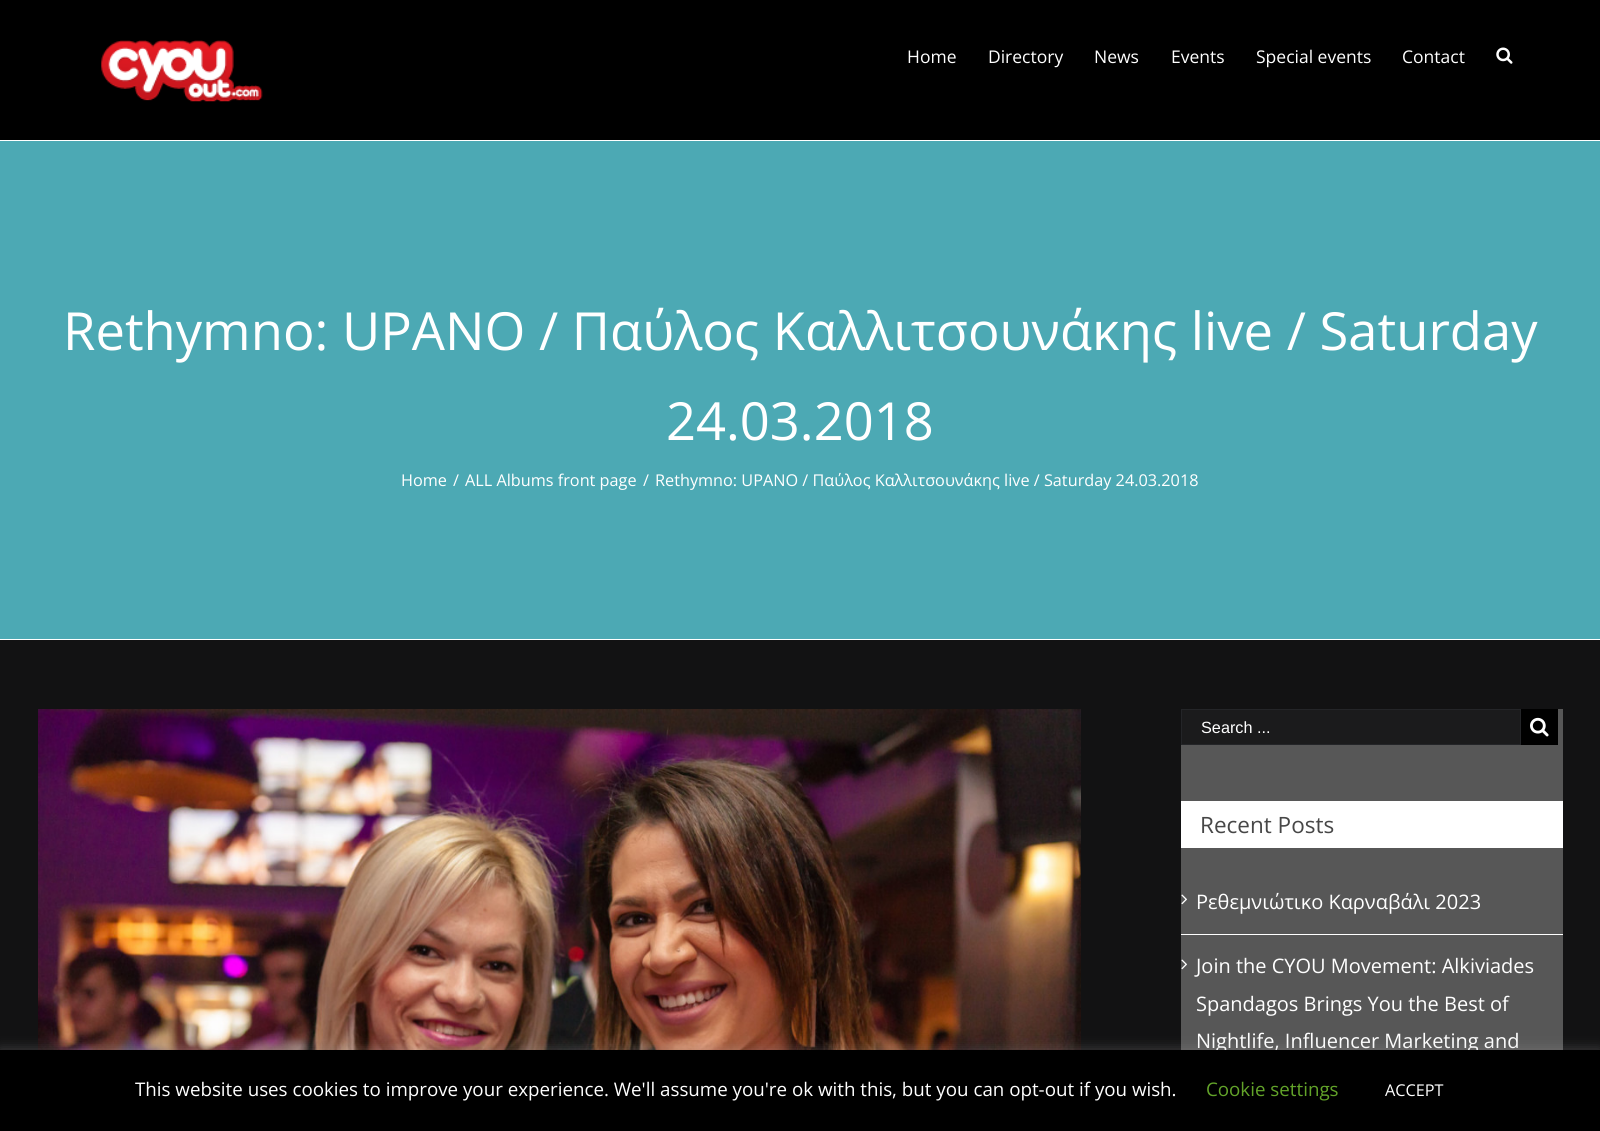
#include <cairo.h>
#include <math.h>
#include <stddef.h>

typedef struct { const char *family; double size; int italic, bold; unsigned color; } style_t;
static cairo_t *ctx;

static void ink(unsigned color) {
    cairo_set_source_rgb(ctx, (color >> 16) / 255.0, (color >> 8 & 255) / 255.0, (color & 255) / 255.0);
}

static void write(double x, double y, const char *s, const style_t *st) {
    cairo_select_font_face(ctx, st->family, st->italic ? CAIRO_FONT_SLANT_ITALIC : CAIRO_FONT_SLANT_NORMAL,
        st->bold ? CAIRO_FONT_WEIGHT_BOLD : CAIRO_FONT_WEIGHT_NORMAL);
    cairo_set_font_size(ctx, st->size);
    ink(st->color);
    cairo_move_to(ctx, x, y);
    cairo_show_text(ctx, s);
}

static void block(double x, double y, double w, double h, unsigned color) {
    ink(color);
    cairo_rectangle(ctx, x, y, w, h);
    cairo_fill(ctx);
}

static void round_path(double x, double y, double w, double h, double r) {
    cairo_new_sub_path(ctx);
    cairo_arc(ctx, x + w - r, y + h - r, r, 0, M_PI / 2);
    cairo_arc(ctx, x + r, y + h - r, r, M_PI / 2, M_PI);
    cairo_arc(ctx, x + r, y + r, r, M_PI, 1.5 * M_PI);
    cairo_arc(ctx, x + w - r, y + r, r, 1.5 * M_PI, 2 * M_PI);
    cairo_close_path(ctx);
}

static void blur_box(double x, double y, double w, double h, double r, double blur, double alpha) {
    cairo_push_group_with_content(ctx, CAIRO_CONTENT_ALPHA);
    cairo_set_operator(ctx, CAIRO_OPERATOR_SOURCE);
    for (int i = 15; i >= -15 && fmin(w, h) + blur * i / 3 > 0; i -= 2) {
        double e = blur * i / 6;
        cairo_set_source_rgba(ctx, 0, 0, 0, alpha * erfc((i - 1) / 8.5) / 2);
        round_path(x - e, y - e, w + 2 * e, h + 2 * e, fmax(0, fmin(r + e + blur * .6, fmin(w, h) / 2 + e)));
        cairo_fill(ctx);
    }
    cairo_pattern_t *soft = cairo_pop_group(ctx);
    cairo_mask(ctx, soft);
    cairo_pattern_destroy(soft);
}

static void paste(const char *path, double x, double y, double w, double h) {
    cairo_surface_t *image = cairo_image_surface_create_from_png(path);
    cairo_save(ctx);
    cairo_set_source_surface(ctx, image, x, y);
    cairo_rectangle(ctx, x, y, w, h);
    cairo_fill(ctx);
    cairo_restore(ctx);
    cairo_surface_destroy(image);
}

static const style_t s1 = {"Open Sans", 17.5, 0, 0, 0xffffff};
static const style_t s2 = {"Open Sans", 52.5, 0, 0, 0xffffff};
static const style_t s3 = {"Open Sans", 16.25, 0, 0, 0xffffff};
static const style_t s4 = {"Liberation Sans", 16.25, 0, 0, 0xffffff};
static const style_t s5 = {"Open Sans", 22.5, 0, 0, 0x474747};
static const style_t s6 = {"Open Sans", 20, 0, 0, 0xffffff};
static const style_t s7 = {"Open Sans", 18.75, 0, 0, 0xffffff};
static const style_t s8 = {"Open Sans", 18.75, 0, 0, 0x62a329};

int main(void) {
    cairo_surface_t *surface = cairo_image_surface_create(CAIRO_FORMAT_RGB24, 1600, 1131);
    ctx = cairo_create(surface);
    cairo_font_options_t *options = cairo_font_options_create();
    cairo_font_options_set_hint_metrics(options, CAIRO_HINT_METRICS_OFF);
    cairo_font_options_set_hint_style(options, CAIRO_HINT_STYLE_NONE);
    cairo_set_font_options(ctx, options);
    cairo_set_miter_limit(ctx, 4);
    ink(0x121213);
    cairo_paint(ctx);
    block(0, 0, 1600, 140, 0x000000);
    paste("pic1.png", 101, 40, 162, 62);
    write(907, 63, "Home", &s1);
    write(988, 63, "Directory", &s1);
    write(1094, 63, "News", &s1);
    write(1171, 63, "Events", &s1);
    write(1256, 63, "Special events", &s1);
    write(1402, 63, "Contact", &s1);
    paste("pic2.png", 1496, 47, 17, 17);
    block(0, 141, 1600, 498, 0x4ca9b4);
    block(0, 140, 1600, 1, 0xffffff);
    block(0, 639, 1600, 1, 0xffffff);
    write(63, 350, "Rethymno: UPANO / Παύλος Καλλιτσουνάκης live / Saturday", &s2);
    write(666, 440, "24.03.2018", &s2);
    write(401, 486, "Home", &s3);
    write(453, 486, "/", &s3);
    write(465, 486, "ALL Albums front page", &s3);
    write(643, 486, "/", &s3);
    write(655, 486, "Rethymno: UPANO / Παύλος Καλλιτσουνάκης live / Saturday 24.03.2018", &s3);
    paste("pic3.png", 38, 709, 1043, 341);
    block(1181, 709, 382, 341, 0x575757);
    ink(0x1b1b1c);
    cairo_rectangle(ctx, 1181.5, 709.5, 339, 35);
    cairo_fill_preserve(ctx);
    ink(0x242528);
    cairo_set_line_width(ctx, 1);
    cairo_stroke(ctx);
    write(1201, 733, "Search ...", &s4);
    block(1521, 709, 37, 36, 0x000000);
    paste("pic4.png", 1530, 717, 19, 20);
    block(1181, 801, 382, 47, 0xffffff);
    write(1200, 833, "Recent Posts", &s5);
    block(1181, 934, 382, 1, 0xffffff);
    paste("pic5.png", 1181, 894, 6, 11);
    write(1196, 909, "Ρεθεμνιώτικο Καρναβάλι 2023", &s6);
    paste("pic5.png", 1181, 959, 6, 11);
    write(1196, 973, "Join the CYOU Movement: Alkiviades", &s6);
    write(1196, 1011, "Spandagos Brings You the Best of", &s6);
    write(1196, 1048, "Nightlife, Influencer Marketing and", &s6);
    ink(0xacabab);
    blur_box(0, 1049, 1600, 81, 0, 6, 0.3);
    block(0, 1050, 1600, 81, 0x000000);
    write(135, 1096, "This website uses cookies to improve your experience. We'll assume you're ok with this, but you can opt-out if you wish.", &s7);
    write(1206, 1096, "Cookie settings", &s8);
    write(1385, 1096, "ACCEPT", &s3);
    cairo_surface_write_to_png(surface, "screenshot.png");
    cairo_font_options_destroy(options);
    cairo_destroy(ctx);
    cairo_surface_destroy(surface);
    return 0;
}
